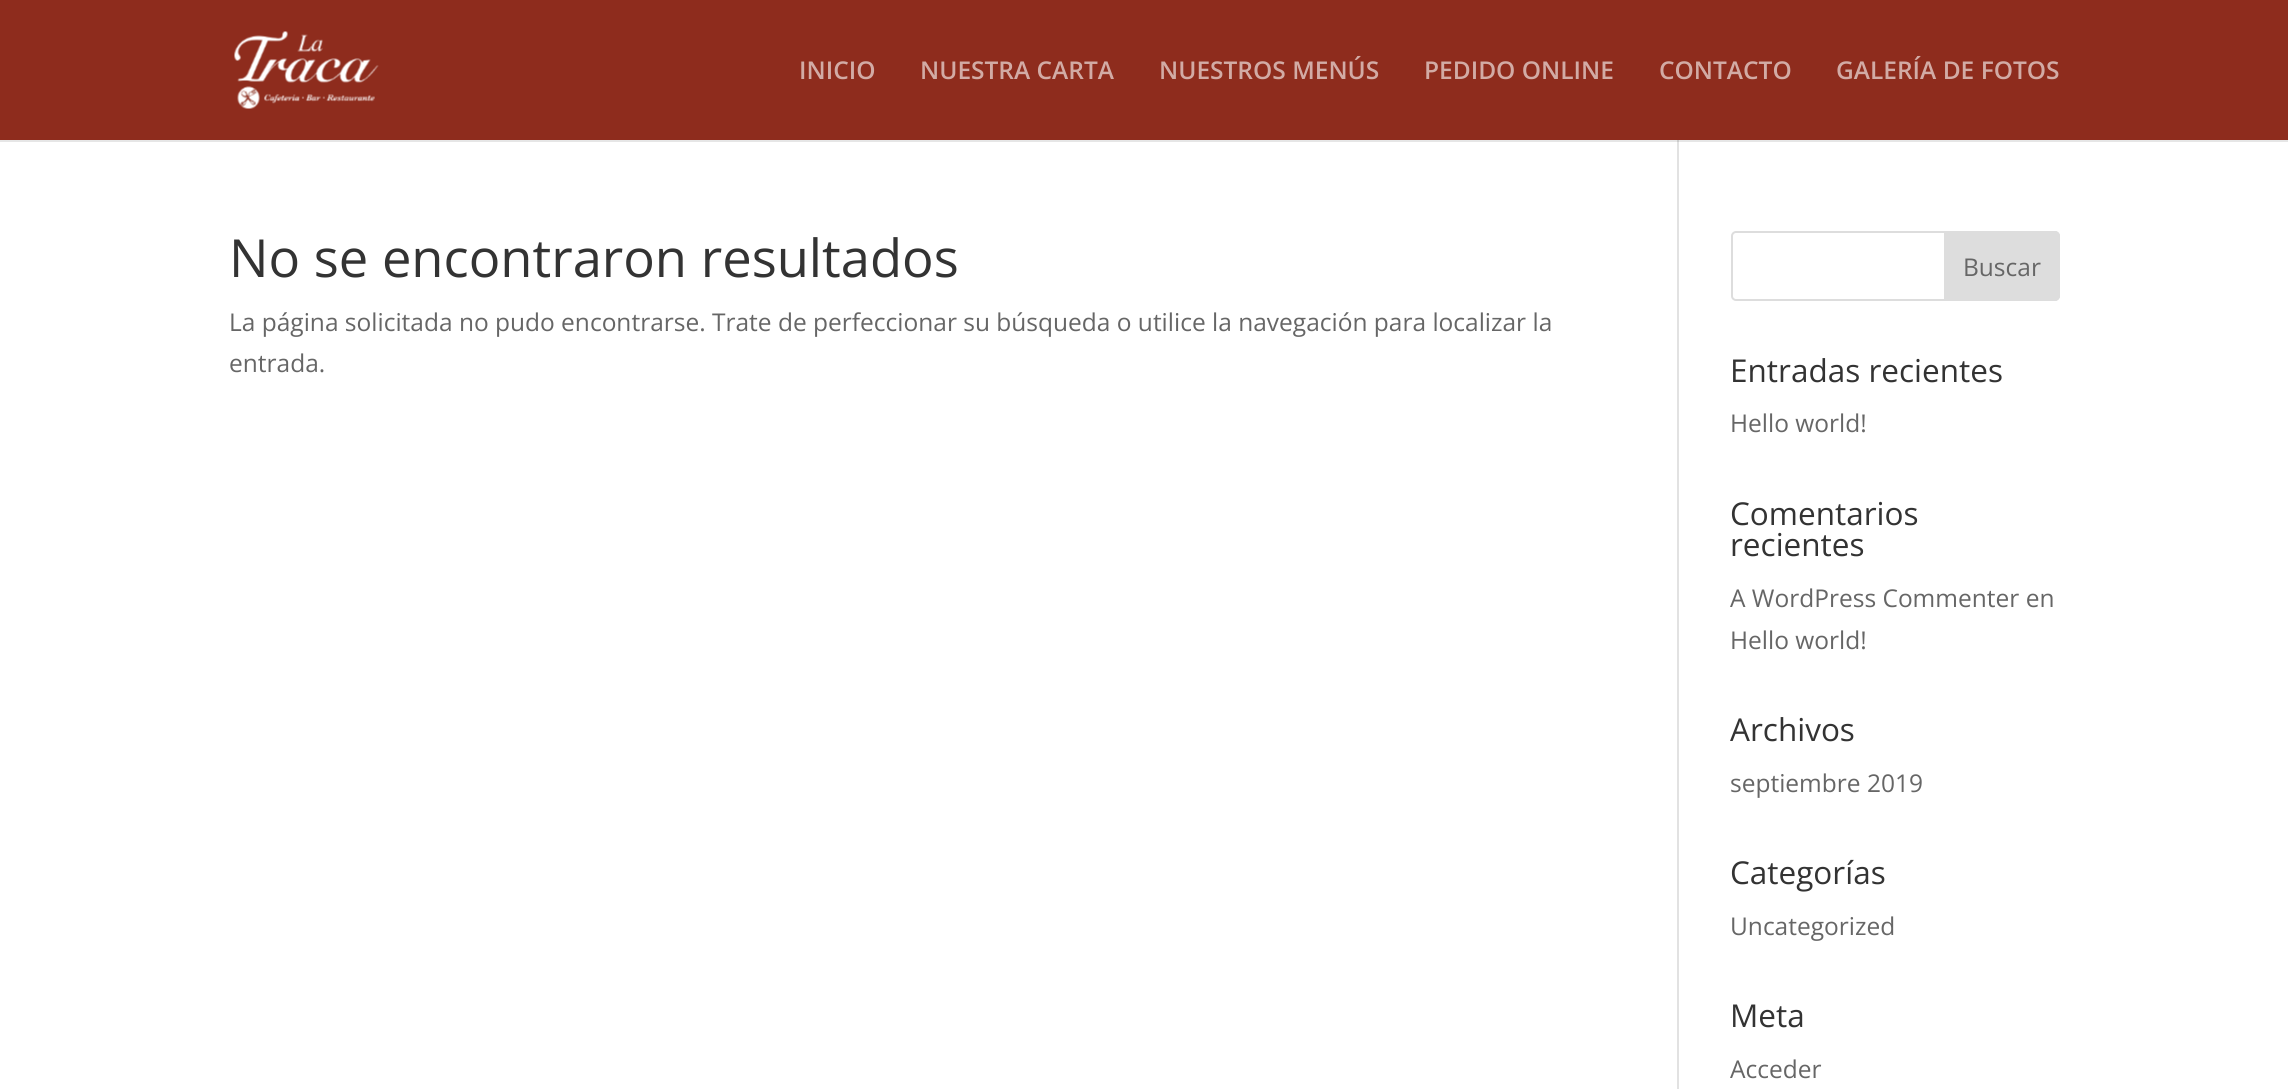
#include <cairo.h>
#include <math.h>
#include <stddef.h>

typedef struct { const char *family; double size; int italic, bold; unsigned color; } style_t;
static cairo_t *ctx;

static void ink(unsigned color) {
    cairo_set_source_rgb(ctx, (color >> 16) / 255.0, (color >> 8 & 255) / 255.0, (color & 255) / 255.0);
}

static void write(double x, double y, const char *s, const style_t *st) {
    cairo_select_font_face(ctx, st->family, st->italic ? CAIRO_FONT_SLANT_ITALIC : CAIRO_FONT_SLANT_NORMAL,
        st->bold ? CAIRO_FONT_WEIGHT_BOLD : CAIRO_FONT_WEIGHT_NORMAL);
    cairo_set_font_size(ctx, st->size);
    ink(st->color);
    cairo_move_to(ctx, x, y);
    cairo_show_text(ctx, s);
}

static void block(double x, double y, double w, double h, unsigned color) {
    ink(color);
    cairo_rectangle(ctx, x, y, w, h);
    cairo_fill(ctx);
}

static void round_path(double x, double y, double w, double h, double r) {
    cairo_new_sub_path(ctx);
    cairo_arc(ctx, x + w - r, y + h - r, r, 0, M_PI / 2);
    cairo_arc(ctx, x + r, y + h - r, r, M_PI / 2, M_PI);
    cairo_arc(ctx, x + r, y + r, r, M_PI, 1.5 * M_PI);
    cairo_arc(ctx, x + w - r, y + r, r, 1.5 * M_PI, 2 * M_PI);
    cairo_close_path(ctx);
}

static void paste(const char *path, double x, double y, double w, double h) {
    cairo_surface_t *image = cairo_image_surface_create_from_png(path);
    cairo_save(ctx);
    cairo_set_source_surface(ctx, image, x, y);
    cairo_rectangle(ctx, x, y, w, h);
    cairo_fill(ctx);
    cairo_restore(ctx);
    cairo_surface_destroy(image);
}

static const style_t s1 = {"Open Sans SemiBold", 24.5, 0, 0, 0xd2aba5};
static const style_t s2 = {"Open Sans", 52.5, 0, 0, 0x333333};
static const style_t s3 = {"Open Sans", 24.5, 0, 0, 0x666666};
static const style_t s4 = {"Open Sans", 31.5, 0, 0, 0x333333};

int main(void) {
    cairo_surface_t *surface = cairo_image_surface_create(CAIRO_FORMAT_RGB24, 2288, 1089);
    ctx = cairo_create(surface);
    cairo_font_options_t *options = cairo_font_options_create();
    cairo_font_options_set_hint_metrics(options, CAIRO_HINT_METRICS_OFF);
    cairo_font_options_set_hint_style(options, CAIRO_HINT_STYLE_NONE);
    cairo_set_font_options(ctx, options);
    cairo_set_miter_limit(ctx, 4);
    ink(0xffffff);
    cairo_paint(ctx);
    block(0, 140, 2288, 2, 0xe6e6e6);
    block(0, 0, 2288, 140, 0x8e2c1d);
    paste("pic1.png", 234, 31, 145, 78);
    write(799, 79, "INICIO", &s1);
    write(920, 79, "NUESTRA CARTA", &s1);
    write(1159, 79, "NUESTROS MENÚS", &s1);
    write(1424, 79, "PEDIDO ONLINE", &s1);
    write(1659, 79, "CONTACTO", &s1);
    write(1836, 79, "GALERÍA DE FOTOS", &s1);
    block(1677, 142, 2, 947, 0xe2e2e2);
    block(1677, 140, 2, 2, 0xcbcbcb);
    write(229, 277, "No se encontraron resultados", &s2);
    write(229, 331, "La página solicitada no pudo encontrarse. Trate de perfeccionar su búsqueda o utilice la navegación para localizar la", &s3);
    write(229, 372, "entrada.", &s3);
    round_path(1732, 232, 327, 68, 4);
    ink(0xdddddd);
    cairo_stroke(ctx);
    cairo_new_path(ctx);
    cairo_move_to(ctx, 1945, 232);
    cairo_line_to(ctx, 2055, 232);
    cairo_curve_to(ctx, 2057, 232, 2059, 234, 2059, 236);
    cairo_line_to(ctx, 2059, 296);
    cairo_curve_to(ctx, 2059, 298, 2057, 300, 2055, 300);
    cairo_line_to(ctx, 1945, 300);
    cairo_close_path(ctx);
    cairo_fill_preserve(ctx);
    cairo_stroke(ctx);
    write(1963, 276, "Buscar", &s3);
    write(1730, 382, "Entradas recientes", &s4);
    write(1730, 432, "Hello world!", &s3);
    write(1730, 525, "Comentarios", &s4);
    write(1730, 556, "recientes", &s4);
    write(1730, 607, "A WordPress Commenter en", &s3);
    write(1730, 649, "Hello world!", &s3);
    write(1730, 741, "Archivos", &s4);
    write(1730, 792, "septiembre 2019", &s3);
    write(1730, 884, "Categorías", &s4);
    write(1730, 935, "Uncategorized", &s3);
    write(1730, 1027, "Meta", &s4);
    write(1730, 1078, "Acceder", &s3);
    cairo_surface_write_to_png(surface, "screenshot.png");
    cairo_font_options_destroy(options);
    cairo_destroy(ctx);
    cairo_surface_destroy(surface);
    return 0;
}
